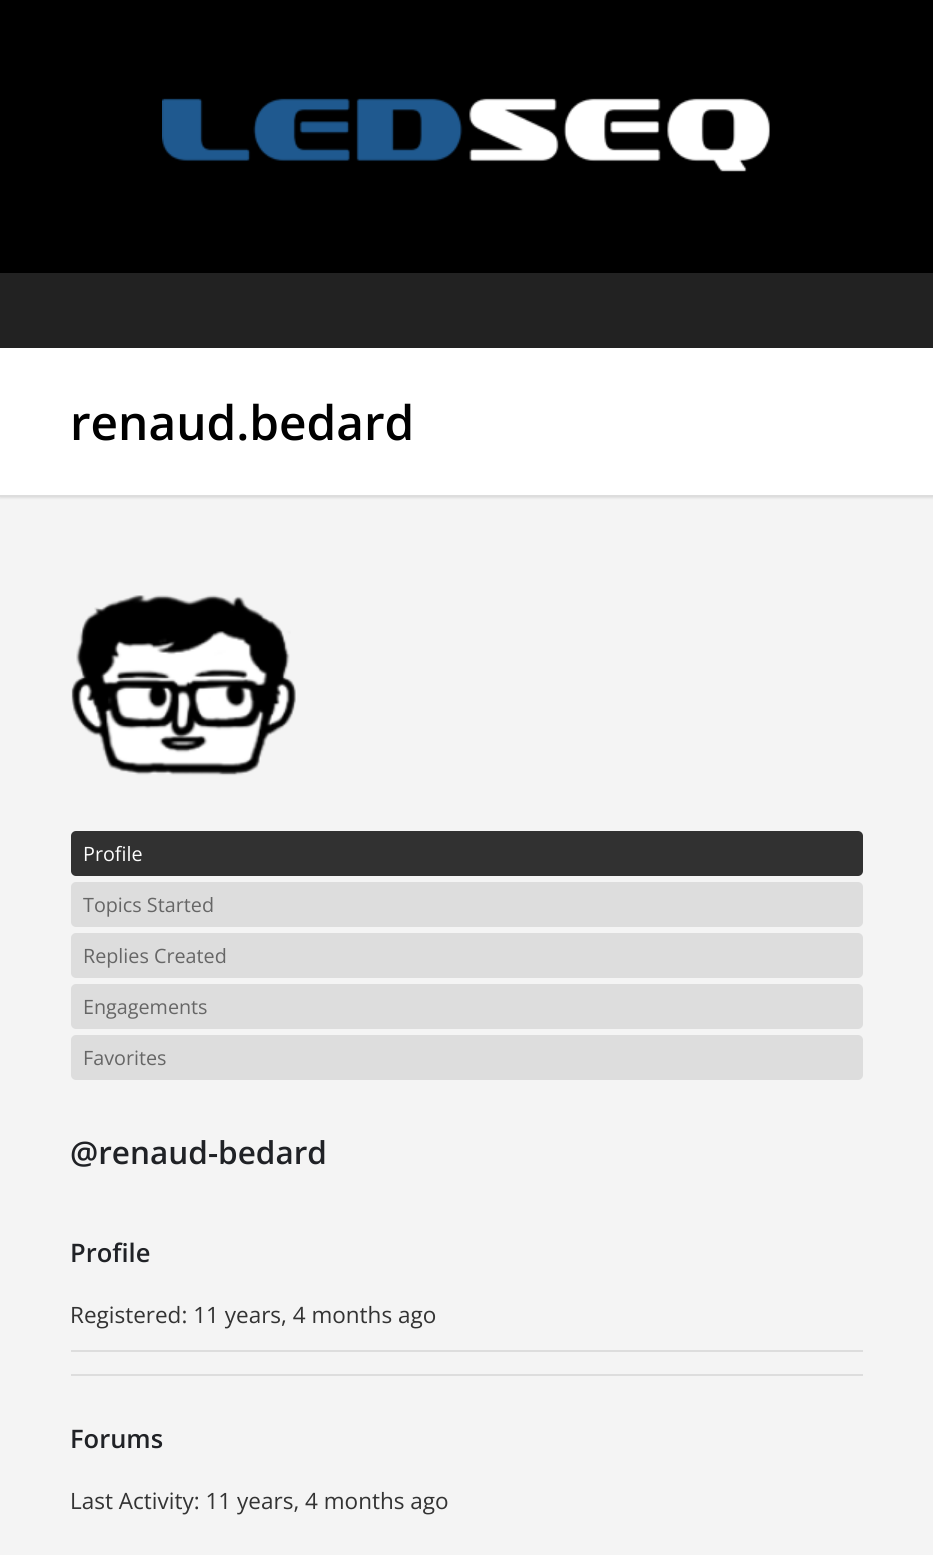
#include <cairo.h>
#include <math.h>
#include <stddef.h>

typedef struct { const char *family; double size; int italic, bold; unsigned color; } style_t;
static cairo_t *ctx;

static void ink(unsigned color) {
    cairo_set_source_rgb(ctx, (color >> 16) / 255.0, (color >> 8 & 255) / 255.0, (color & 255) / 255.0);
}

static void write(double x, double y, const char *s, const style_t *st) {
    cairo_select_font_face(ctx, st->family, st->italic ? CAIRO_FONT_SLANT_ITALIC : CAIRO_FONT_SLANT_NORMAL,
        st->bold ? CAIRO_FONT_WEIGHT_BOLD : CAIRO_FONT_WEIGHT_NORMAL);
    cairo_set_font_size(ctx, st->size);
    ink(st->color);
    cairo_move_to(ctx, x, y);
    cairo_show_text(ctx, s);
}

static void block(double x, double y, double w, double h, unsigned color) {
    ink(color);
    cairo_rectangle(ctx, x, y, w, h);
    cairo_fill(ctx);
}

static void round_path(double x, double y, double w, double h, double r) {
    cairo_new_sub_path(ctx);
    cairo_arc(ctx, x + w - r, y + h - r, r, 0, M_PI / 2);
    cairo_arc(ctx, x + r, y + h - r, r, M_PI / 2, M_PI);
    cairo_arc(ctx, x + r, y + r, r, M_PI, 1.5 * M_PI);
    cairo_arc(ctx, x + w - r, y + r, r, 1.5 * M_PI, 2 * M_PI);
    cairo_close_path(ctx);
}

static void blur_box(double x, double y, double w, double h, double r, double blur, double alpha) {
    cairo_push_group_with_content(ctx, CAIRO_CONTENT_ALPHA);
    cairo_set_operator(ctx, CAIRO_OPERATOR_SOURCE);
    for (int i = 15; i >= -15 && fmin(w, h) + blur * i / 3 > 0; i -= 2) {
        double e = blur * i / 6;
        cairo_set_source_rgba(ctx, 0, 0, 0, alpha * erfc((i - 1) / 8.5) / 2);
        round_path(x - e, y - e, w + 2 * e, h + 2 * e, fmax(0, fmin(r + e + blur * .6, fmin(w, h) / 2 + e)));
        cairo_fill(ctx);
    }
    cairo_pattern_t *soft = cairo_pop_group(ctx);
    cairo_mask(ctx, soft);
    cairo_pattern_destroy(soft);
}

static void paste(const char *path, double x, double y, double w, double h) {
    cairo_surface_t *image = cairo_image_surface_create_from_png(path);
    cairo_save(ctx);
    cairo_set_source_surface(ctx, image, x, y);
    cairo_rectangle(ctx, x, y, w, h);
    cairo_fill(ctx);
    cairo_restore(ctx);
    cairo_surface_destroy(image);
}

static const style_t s1 = {"Open Sans SemiBold", 47.75, 0, 0, 0x000000};
static const style_t s2 = {"Open Sans", 19.75, 0, 0, 0xfdfdfd};
static const style_t s3 = {"Open Sans", 19.75, 0, 0, 0x666666};
static const style_t s4 = {"Open Sans SemiBold", 31.5, 0, 0, 0x202226};
static const style_t s5 = {"Open Sans SemiBold", 25.5, 0, 0, 0x202226};
static const style_t s6 = {"Open Sans", 22.5, 0, 0, 0x333333};

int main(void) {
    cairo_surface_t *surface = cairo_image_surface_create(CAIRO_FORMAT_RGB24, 933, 1555);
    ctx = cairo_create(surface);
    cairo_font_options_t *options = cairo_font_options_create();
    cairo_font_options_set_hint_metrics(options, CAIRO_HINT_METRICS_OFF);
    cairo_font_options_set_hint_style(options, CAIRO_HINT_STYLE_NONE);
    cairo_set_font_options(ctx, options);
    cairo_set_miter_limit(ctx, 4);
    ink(0xf4f4f4);
    cairo_paint(ctx);
    block(0, 0, 933, 273, 0x000000);
    paste("pic1.png", 162, 98, 608, 74);
    ink(0xdddddd);
    blur_box(0, 350, 933, 148, 0, 1, 1);
    block(0, 273, 933, 75, 0x222222);
    block(0, 348, 933, 147, 0xffffff);
    block(0, 495, 933, 2, 0xdddddd);
    write(70, 440, "renaud.bedard", &s1);
    paste("pic2.png", 71, 595, 225, 181);
    ink(0x313131);
    round_path(71, 831, 792, 45, 5);
    cairo_fill(ctx);
    write(83, 861, "Profile", &s2);
    ink(0xdddddd);
    round_path(71, 882, 792, 45, 5);
    cairo_fill(ctx);
    write(83, 912, "Topics Started", &s3);
    ink(0xdddddd);
    round_path(71, 933, 792, 45, 5);
    cairo_fill(ctx);
    write(83, 963, "Replies Created", &s3);
    ink(0xdddddd);
    round_path(71, 984, 792, 45, 5);
    cairo_fill(ctx);
    write(83, 1014, "Engagements", &s3);
    ink(0xdddddd);
    round_path(71, 1035, 792, 45, 5);
    cairo_fill(ctx);
    write(83, 1065, "Favorites", &s3);
    write(70, 1164, "@renaud-bedard", &s4);
    write(70, 1262, "Profile", &s5);
    block(71, 1350, 792, 2, 0xdddddd);
    write(70, 1323, "Registered: 11 years, 4 months ago", &s6);
    block(71, 1374, 792, 2, 0xdddddd);
    write(70, 1448, "Forums", &s5);
    write(70, 1509, "Last Activity: 11 years, 4 months ago", &s6);
    cairo_surface_write_to_png(surface, "screenshot.png");
    cairo_font_options_destroy(options);
    cairo_destroy(ctx);
    cairo_surface_destroy(surface);
    return 0;
}
